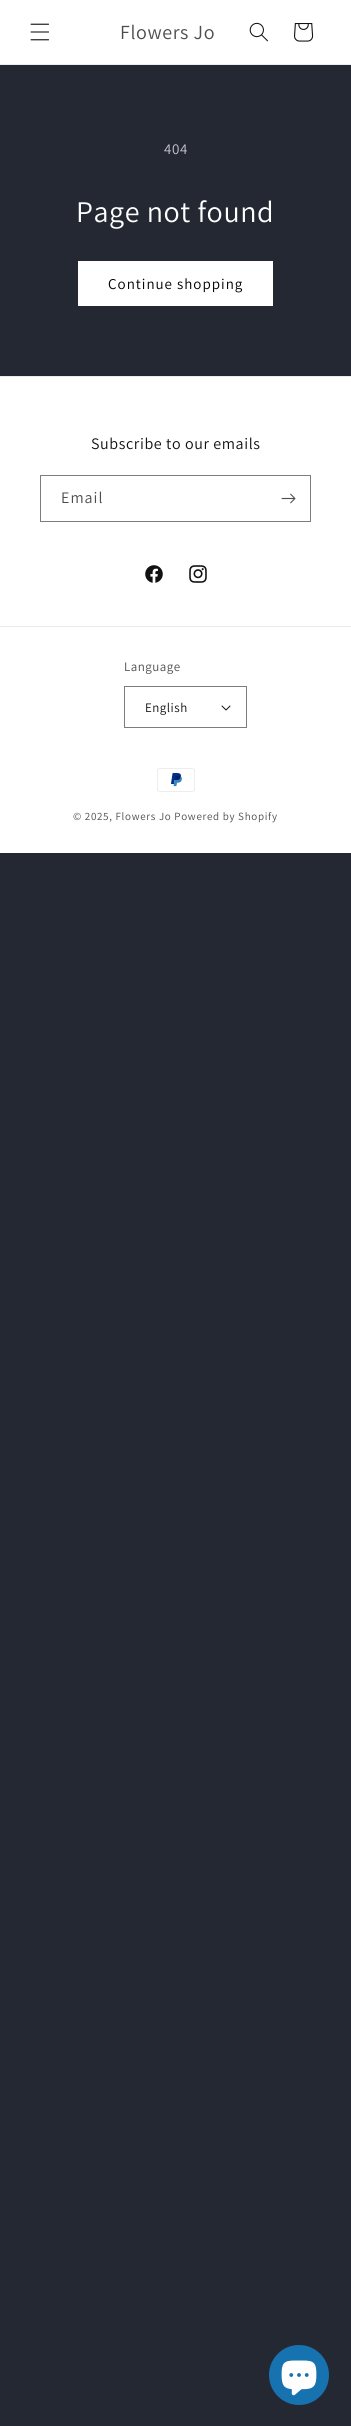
#include <cairo.h>
#include <math.h>
#include <stddef.h>

static cairo_t *ctx;

static void ink(unsigned color) {
    cairo_set_source_rgb(ctx, (color >> 16) / 255.0, (color >> 8 & 255) / 255.0, (color & 255) / 255.0);
}

static void write_spaced(double x, double y, const char *s, double letter, double word) {
    cairo_move_to(ctx, x, y);
    while (*s) {
        char ch[5] = {0};
        int n = 0;
        do ch[n++] = *s++; while ((*s & 0xC0) == 0x80);
        cairo_show_text(ctx, ch);
        cairo_rel_move_to(ctx, letter + word * (*ch == ' '), 0);
    }
}

static void block(double x, double y, double w, double h, unsigned color) {
    ink(color);
    cairo_rectangle(ctx, x, y, w, h);
    cairo_fill(ctx);
}

static void paste(const char *path, double x, double y, double w, double h) {
    cairo_surface_t *image = cairo_image_surface_create_from_png(path);
    cairo_save(ctx);
    cairo_set_source_surface(ctx, image, x, y);
    cairo_rectangle(ctx, x, y, w, h);
    cairo_fill(ctx);
    cairo_restore(ctx);
    cairo_surface_destroy(image);
}

int main(void) {
    cairo_surface_t *surface = cairo_image_surface_create(CAIRO_FORMAT_RGB24, 351, 2426);
    ctx = cairo_create(surface);
    cairo_font_options_t *options = cairo_font_options_create();
    cairo_font_options_set_hint_metrics(options, CAIRO_HINT_METRICS_OFF);
    cairo_font_options_set_hint_style(options, CAIRO_HINT_STYLE_NONE);
    cairo_set_font_options(ctx, options);
    cairo_set_miter_limit(ctx, 4);
    ink(0x242833);
    cairo_paint(ctx);
    block(0, 0, 351, 64, 0xffffff);
    block(0, 64, 351, 1, 0xececec);
    paste("pic1.png", 30, 23, 20, 18);
    cairo_select_font_face(ctx, "Assistant", CAIRO_FONT_SLANT_NORMAL, CAIRO_FONT_WEIGHT_NORMAL);
    cairo_set_font_size(ctx, 20);
    ink(0x4d4d4d);
    write_spaced(120, 39, "Flowers Jo", 0.6, 0);
    paste("pic2.png", 249, 22, 19, 20);
    paste("pic3.png", 294, 23, 20, 19);
    cairo_set_font_size(ctx, 15);
    ink(0xc8c9cc);
    write_spaced(164, 154, "404", 0.6, 0);
    cairo_set_font_size(ctx, 30);
    ink(0xffffff);
    write_spaced(76, 222, "Page not found", 0.6, 0);
    block(78, 261, 195, 45, 0xffffff);
    cairo_set_font_size(ctx, 15);
    ink(0x000000);
    write_spaced(108, 289, "Continue shopping", 1, 0);
    block(0, 377, 351, 476, 0xffffff);
    block(0, 376, 351, 1, 0xececec);
    cairo_set_font_size(ctx, 16);
    ink(0x121212);
    write_spaced(91, 449, "Subscribe to our emails", 0.6, 0);
    cairo_rectangle(ctx, 40.5, 475.5, 270, 46);
    ink(0x7d7d7d);
    cairo_set_line_width(ctx, 1);
    cairo_stroke(ctx);
    ink(0x4d4d4d);
    write_spaced(61, 503, "Email", 1, 0);
    paste("pic4.png", 281, 493, 15, 11);
    paste("pic5.png", 145, 565, 18, 18);
    paste("pic6.png", 189, 565, 18, 18);
    block(0, 626, 351, 1, 0xececec);
    cairo_set_font_size(ctx, 13);
    ink(0x4d4d4d);
    write_spaced(124, 671, "Language", 0.5, 0);
    paste("pic7.png", 221, 705, 10, 6);
    cairo_rectangle(ctx, 124.5, 686.5, 122, 41);
    ink(0x7d7d7d);
    cairo_stroke(ctx);
    ink(0x121212);
    write_spaced(145, 712, "English", 0.5, 0);
    paste("pic8.png", 157, 768, 38, 24);
    cairo_set_font_size(ctx, 11);
    ink(0x4d4d4d);
    write_spaced(73, 820, "© 2025, Flowers Jo Powered by Shopify", 0.7, 0);
    ink(0x1773b0);
    cairo_new_path(ctx);
    cairo_arc(ctx, 299, 2375, 30, 0, 2 * M_PI);
    cairo_fill(ctx);
    paste("pic9.png", 281, 2360, 36, 36);
    cairo_surface_write_to_png(surface, "screenshot.png");
    cairo_font_options_destroy(options);
    cairo_destroy(ctx);
    cairo_surface_destroy(surface);
    return 0;
}
